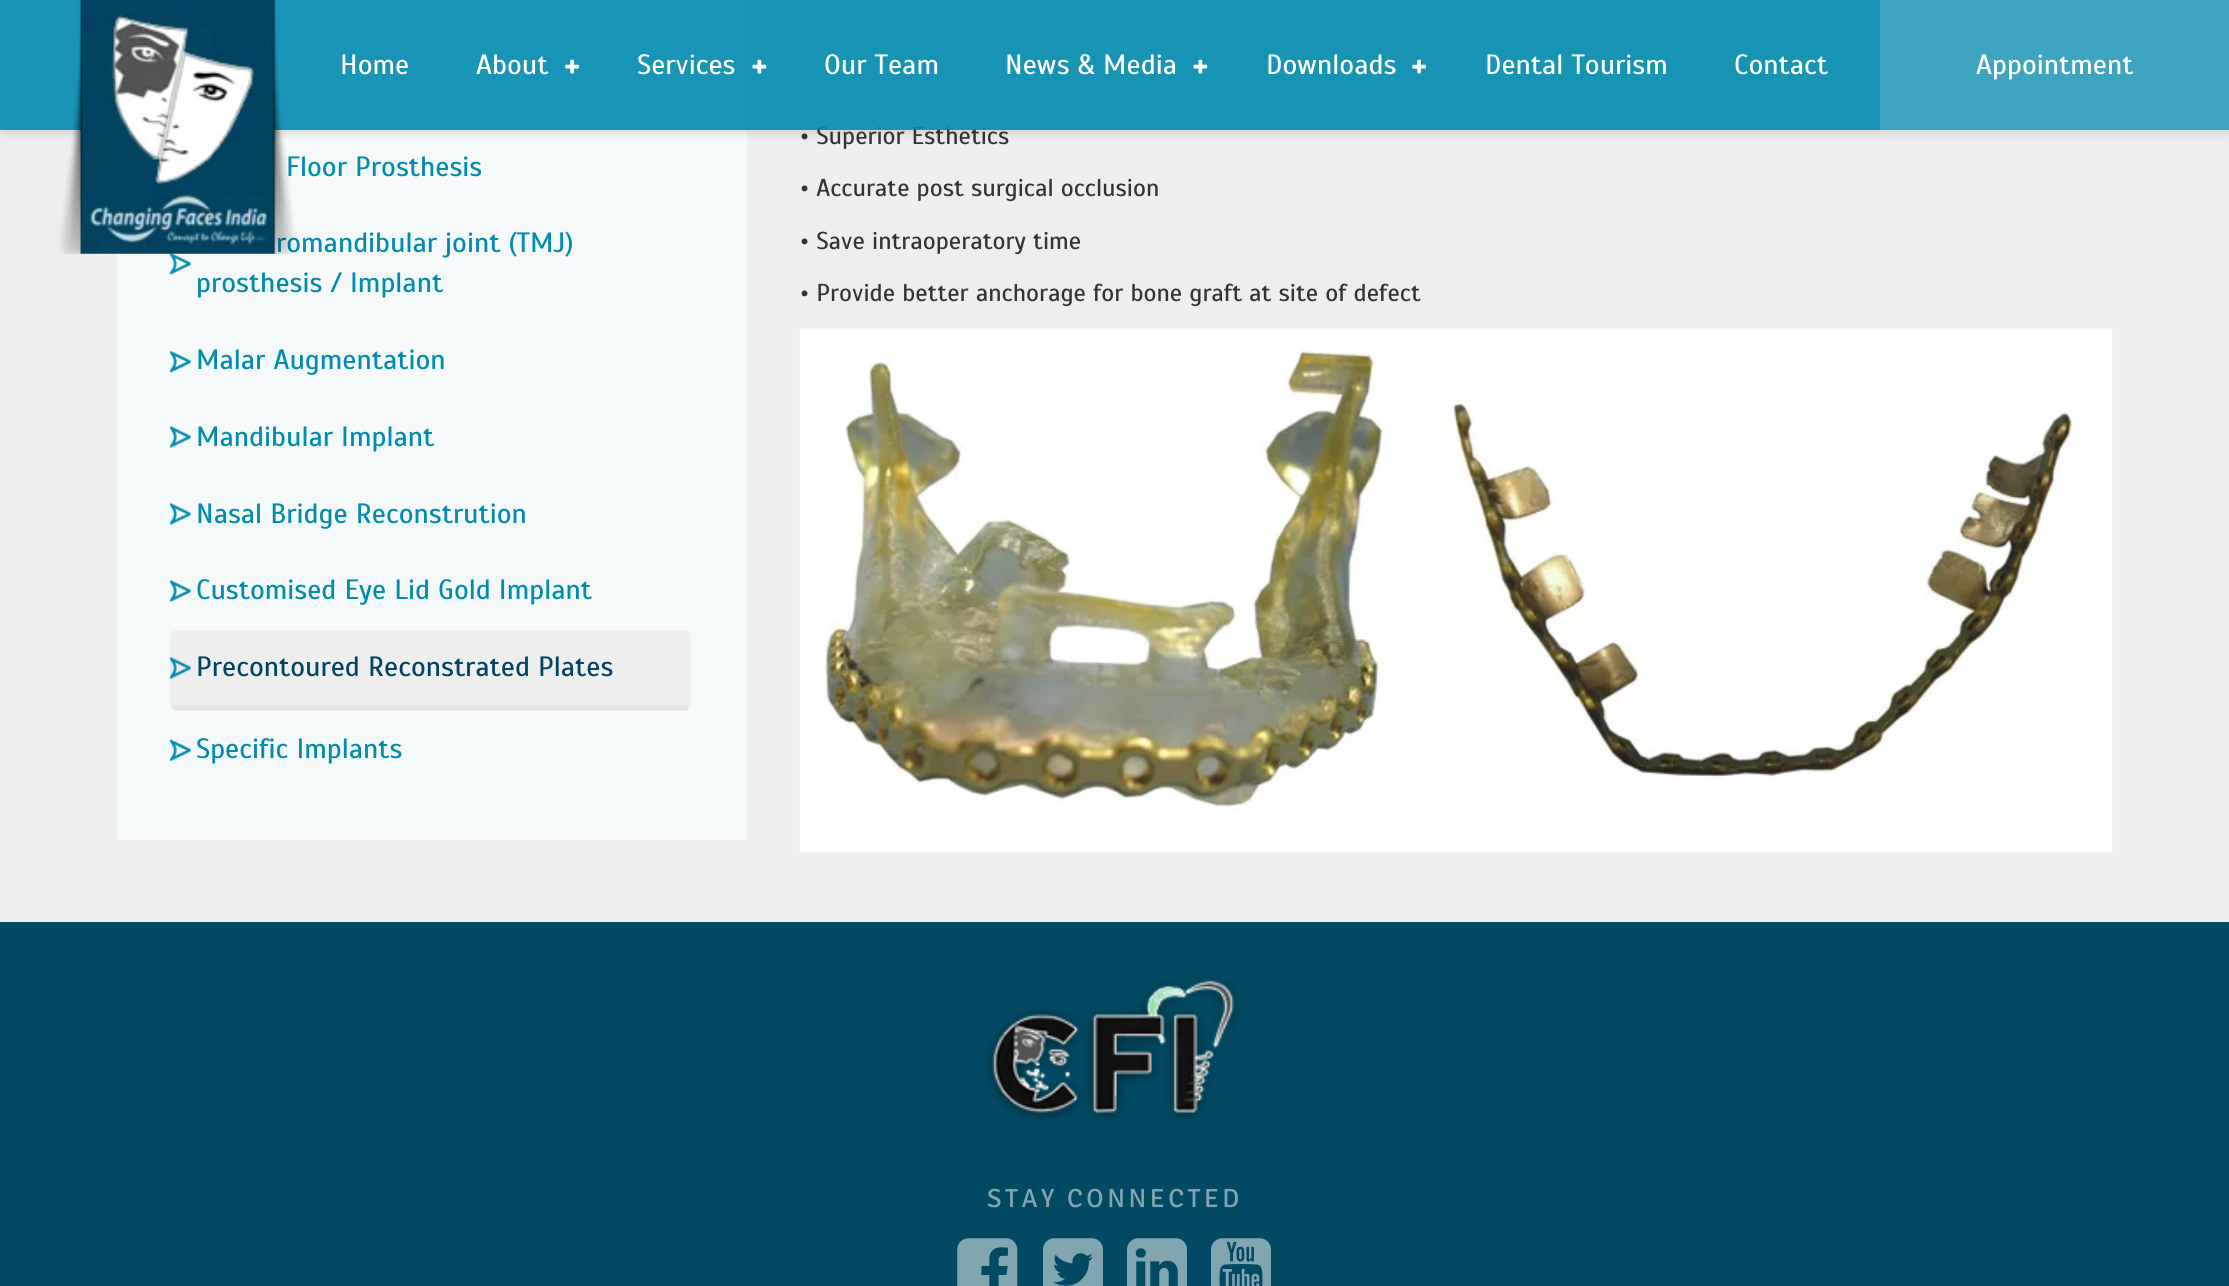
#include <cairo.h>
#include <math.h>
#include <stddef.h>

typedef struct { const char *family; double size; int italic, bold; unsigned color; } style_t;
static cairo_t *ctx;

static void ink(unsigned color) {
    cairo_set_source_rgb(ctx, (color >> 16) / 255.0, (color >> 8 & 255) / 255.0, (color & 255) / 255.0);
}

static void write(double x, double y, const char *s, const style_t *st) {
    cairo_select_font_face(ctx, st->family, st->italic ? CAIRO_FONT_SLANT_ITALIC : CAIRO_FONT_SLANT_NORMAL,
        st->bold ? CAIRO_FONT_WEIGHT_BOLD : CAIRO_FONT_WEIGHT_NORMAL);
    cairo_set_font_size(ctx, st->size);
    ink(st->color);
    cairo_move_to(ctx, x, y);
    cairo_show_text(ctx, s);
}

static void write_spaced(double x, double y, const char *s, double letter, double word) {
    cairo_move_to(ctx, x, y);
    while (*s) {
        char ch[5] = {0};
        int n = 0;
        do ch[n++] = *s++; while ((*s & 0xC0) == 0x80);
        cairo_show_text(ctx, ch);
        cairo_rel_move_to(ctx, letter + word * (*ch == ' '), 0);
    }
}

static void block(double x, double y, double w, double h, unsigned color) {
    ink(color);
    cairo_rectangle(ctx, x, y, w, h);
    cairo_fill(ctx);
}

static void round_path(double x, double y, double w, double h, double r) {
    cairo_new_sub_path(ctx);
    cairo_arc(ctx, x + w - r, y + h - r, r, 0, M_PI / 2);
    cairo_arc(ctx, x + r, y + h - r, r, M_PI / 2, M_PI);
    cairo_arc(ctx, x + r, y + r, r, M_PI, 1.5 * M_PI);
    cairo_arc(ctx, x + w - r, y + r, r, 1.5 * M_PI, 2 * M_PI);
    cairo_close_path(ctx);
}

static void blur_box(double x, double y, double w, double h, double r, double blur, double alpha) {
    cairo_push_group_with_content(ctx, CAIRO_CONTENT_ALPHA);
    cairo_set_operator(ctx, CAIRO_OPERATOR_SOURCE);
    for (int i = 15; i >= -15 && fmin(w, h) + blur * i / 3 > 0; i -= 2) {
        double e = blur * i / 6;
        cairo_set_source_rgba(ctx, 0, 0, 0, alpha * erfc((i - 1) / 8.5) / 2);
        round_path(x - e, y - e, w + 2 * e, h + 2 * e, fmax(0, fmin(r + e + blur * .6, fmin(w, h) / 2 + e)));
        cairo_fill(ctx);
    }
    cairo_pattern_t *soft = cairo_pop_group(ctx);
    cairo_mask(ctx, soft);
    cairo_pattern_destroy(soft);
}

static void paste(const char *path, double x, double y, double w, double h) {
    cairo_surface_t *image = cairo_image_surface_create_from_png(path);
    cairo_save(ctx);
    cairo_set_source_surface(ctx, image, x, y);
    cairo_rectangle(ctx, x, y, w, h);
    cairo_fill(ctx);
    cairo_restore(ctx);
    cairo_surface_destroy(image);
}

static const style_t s1 = {"Scada", 24.5, 0, 0, 0x333333};
static const style_t s2 = {"Scada", 28, 0, 0, 0x018baf};
static const style_t s3 = {"Scada", 28, 0, 0, 0xffffff};
static const style_t s4 = {"Scada", 28, 0, 0, 0x014461};

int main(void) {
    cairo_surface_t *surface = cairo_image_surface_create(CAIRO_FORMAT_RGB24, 2229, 1286);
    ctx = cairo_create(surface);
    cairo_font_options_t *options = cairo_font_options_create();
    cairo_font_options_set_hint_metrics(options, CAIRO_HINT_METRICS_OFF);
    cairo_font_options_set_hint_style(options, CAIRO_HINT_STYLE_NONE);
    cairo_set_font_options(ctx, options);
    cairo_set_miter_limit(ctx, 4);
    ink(0xeeeeee);
    cairo_paint(ctx);
    block(117, 0, 630, 840, 0xf5f9fa);
    cairo_save(ctx);
    cairo_set_fill_rule(ctx, CAIRO_FILL_RULE_EVEN_ODD);
    cairo_new_path(ctx);
    cairo_move_to(ctx, 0, 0);
    cairo_line_to(ctx, 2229, 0);
    cairo_line_to(ctx, 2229, 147);
    cairo_line_to(ctx, 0, 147);
    cairo_close_path(ctx);
    cairo_move_to(ctx, 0, 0);
    cairo_line_to(ctx, 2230, 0);
    cairo_line_to(ctx, 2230, 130);
    cairo_line_to(ctx, 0, 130);
    cairo_close_path(ctx);
    cairo_clip(ctx);
    ink(0x000000);
    blur_box(0, 5, 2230, 130, 0, 3.5, 0.1);
    cairo_restore(ctx);
    write(800, 144, "• Superior Esthetics", &s1);
    cairo_set_source_rgba(ctx, 0.004, 0.545, 0.682, 0.9);
    cairo_rectangle(ctx, 0, 0, 1880, 130);
    cairo_fill(ctx);
    write(286, 176, "Floor Prosthesis", &s2);
    paste("pic5.png", 169, 253, 22, 22);
    write(276, 252, "romandibular joint (TMJ)", &s2);
    paste("pic1.png", 58, 0, 239, 254);
    write(340, 74, "Home", &s3);
    write(476, 74, "About", &s3);
    paste("pic2.png", 565, 59, 14, 15);
    write(637, 74, "Services", &s3);
    paste("pic3.png", 752, 59, 15, 15);
    write(824, 74, "Our Team", &s3);
    write(1005, 74, "News & Media", &s3);
    paste("pic3.png", 1193, 59, 15, 15);
    write(1266, 74, "Downloads", &s3);
    paste("pic4.png", 1412, 59, 14, 15);
    write(1485, 74, "Dental Tourism", &s3);
    write(1734, 74, "Contact", &s3);
    block(1880, 0, 349, 130, 0x3fa4c0);
    write(1976, 74, "Appointment", &s3);
    write(196, 292, "prosthesis / Implant", &s2);
    paste("pic5.png", 169, 351, 22, 22);
    write(196, 369, "Malar Augmentation", &s2);
    paste("pic6.png", 169, 426, 22, 22);
    write(196, 446, "Mandibular Implant", &s2);
    paste("pic6.png", 169, 503, 22, 22);
    write(196, 523, "Nasal Bridge Reconstrution", &s2);
    paste("pic6.png", 169, 580, 22, 22);
    write(196, 599, "Customised Eye Lid Gold Implant", &s2);
    ink(0xeeeeee);
    round_path(170, 630, 521, 81, 7);
    cairo_fill(ctx);
    paste("pic7.png", 169, 657, 22, 22);
    block(173, 705, 515, 5, 0xe4e4e4);
    write(196, 676, "Precontoured Reconstrated Plates", &s4);
    paste("pic8.png", 169, 739, 22, 22);
    write(196, 758, "Specific Implants", &s2);
    write(800, 196, "• Accurate post surgical occlusion", &s1);
    write(800, 249, "• Save intraoperatory time", &s1);
    write(800, 301, "• Provide better anchorage for bone graft at site of defect", &s1);
    paste("pic9.png", 799, 328, 1314, 524);
    block(0, 922, 2229, 364, 0x024a63);
    paste("pic10.png", 985, 976, 256, 146);
    cairo_select_font_face(ctx, "Signika Light", CAIRO_FONT_SLANT_NORMAL, CAIRO_FONT_WEIGHT_NORMAL);
    cairo_set_font_size(ctx, 26.25);
    ink(0x81a5b1);
    write_spaced(987, 1207, "STAY CONNECTED", 3.5, 0);
    paste("pic11.png", 957, 1238, 61, 48);
    paste("pic12.png", 1043, 1238, 60, 48);
    paste("pic13.png", 1127, 1238, 60, 48);
    paste("pic14.png", 1211, 1238, 60, 48);
    cairo_surface_write_to_png(surface, "screenshot.png");
    cairo_font_options_destroy(options);
    cairo_destroy(ctx);
    cairo_surface_destroy(surface);
    return 0;
}
